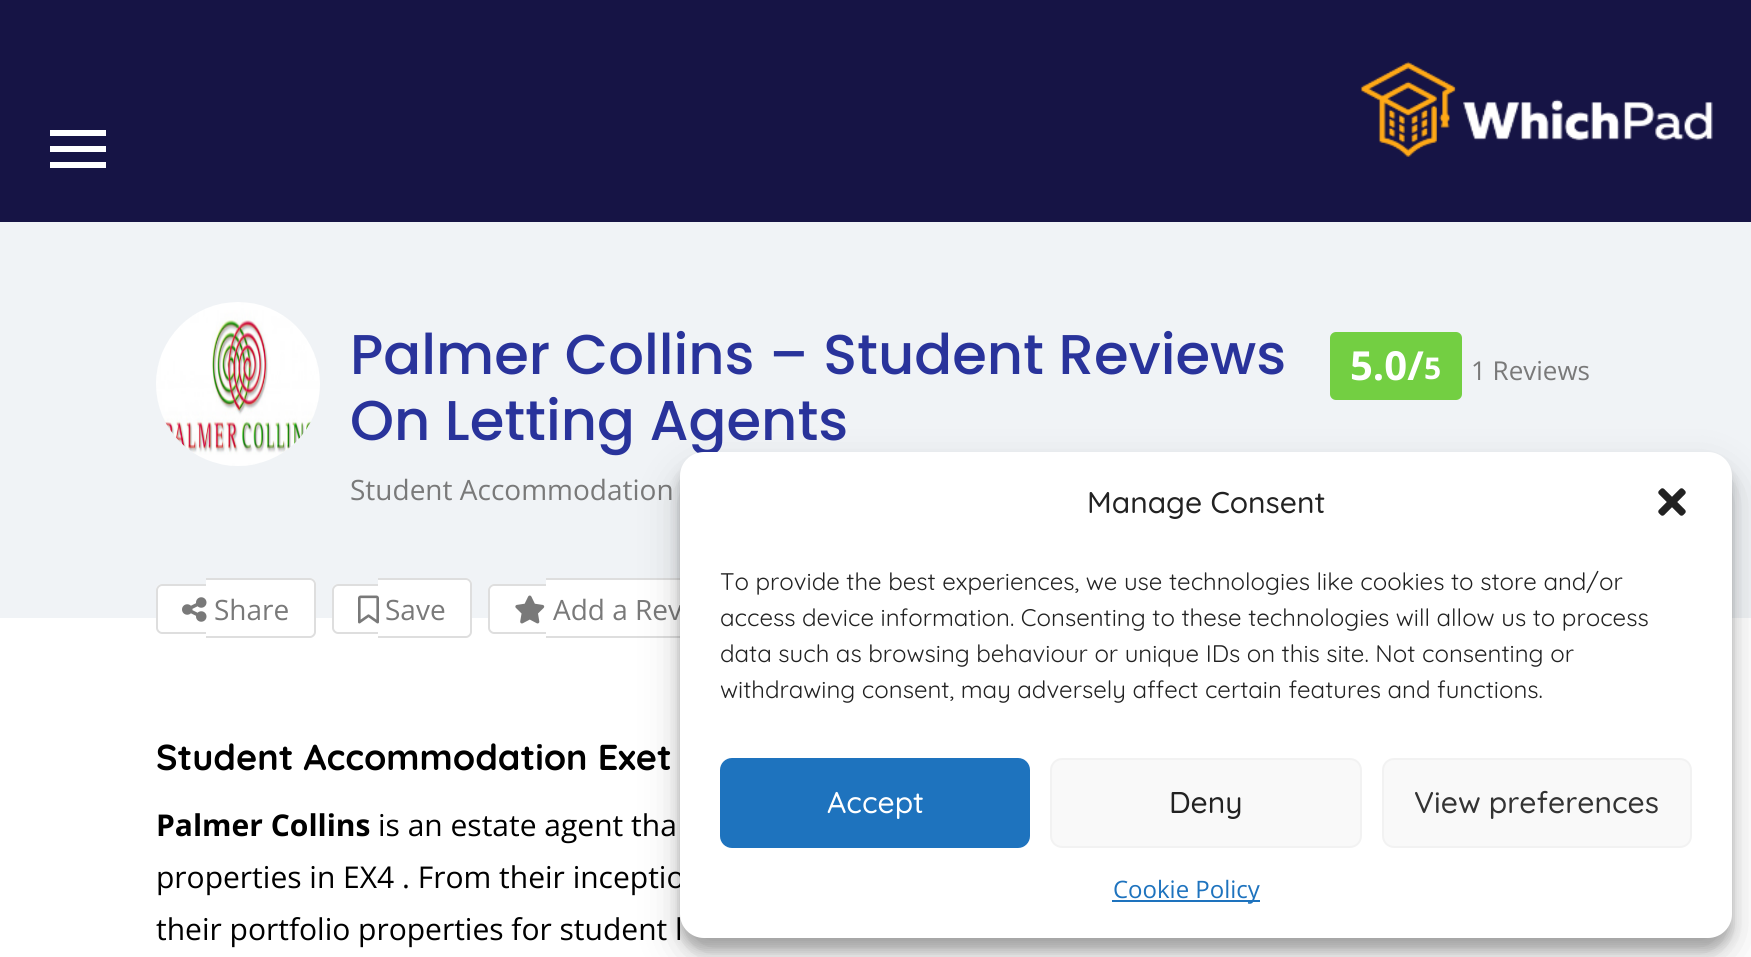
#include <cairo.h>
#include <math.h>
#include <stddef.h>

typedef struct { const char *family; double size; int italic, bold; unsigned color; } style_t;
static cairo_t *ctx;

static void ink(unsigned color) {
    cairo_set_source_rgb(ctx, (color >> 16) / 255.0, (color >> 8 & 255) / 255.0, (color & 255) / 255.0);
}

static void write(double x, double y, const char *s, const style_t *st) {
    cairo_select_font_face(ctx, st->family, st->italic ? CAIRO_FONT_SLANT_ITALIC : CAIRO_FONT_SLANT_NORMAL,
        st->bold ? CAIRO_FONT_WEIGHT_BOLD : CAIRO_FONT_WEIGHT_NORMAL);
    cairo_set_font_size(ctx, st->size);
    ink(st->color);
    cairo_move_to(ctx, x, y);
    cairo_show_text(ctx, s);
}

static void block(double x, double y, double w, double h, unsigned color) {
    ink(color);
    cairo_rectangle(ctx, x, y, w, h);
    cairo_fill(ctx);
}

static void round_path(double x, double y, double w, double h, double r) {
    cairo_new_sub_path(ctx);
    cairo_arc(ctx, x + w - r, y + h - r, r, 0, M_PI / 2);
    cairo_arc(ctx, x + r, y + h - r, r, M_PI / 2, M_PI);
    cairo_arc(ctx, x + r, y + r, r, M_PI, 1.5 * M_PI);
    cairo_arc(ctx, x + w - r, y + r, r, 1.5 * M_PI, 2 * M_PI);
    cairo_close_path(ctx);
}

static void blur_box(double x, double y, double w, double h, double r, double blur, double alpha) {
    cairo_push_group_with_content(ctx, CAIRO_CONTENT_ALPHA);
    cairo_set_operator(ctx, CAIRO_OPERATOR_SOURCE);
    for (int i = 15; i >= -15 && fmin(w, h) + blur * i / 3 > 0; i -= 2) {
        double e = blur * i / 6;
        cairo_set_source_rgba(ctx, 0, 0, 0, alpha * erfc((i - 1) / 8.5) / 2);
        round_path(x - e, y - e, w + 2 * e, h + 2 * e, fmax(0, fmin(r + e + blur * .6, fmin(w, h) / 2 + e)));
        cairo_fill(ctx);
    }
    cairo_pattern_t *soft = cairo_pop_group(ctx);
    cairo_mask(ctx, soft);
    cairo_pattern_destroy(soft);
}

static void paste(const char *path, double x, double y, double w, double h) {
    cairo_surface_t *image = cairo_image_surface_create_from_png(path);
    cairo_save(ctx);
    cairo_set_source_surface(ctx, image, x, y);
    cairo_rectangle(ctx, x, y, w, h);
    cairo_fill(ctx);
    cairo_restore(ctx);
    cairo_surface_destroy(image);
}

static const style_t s1 = {"Poppins Medium", 56, 0, 0, 0x29339b};
static const style_t s2 = {"Open Sans", 28, 0, 0, 0x797979};
static const style_t s3 = {"Open Sans", 40, 0, 1, 0xffffff};
static const style_t s4 = {"Open Sans", 30, 0, 1, 0xffffff};
static const style_t s5 = {"Open Sans", 26, 0, 0, 0x797979};
static const style_t s6 = {"Quicksand", 36, 0, 1, 0x000000};
static const style_t s7 = {"Open Sans", 30, 0, 1, 0x000000};
static const style_t s8 = {"Open Sans", 30, 0, 0, 0x000000};
static const style_t s9 = {"Quicksand Medium", 30, 0, 0, 0x222222};
static const style_t s10 = {"Quicksand", 24, 0, 0, 0x222222};
static const style_t s11 = {"Quicksand Medium", 30, 0, 0, 0xffffff};
static const style_t s12 = {"Quicksand Medium", 30, 0, 0, 0x333333};
static const style_t s13 = {"Open Sans", 24, 0, 0, 0x1e73be};

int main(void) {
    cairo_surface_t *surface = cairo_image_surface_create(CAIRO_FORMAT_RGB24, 1751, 957);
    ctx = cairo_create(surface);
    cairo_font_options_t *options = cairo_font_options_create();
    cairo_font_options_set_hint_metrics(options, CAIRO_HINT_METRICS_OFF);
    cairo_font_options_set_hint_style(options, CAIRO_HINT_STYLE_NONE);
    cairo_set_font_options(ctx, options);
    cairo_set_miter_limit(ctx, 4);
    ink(0xffffff);
    cairo_paint(ctx);
    block(0, 0, 1751, 222, 0x161445);
    block(50, 130, 56, 6, 0xffffff);
    block(50, 146, 56, 6, 0xffffff);
    block(50, 162, 56, 6, 0xffffff);
    paste("pic1.png", 1360, 61, 353, 96);
    block(0, 222, 1751, 396, 0xf0f3f6);
    paste("pic2.png", 156, 302, 164, 164);
    write(350, 374, "Palmer Collins – Student Reviews", &s1);
    write(350, 440, "On Letting Agents", &s1);
    write(350, 500, "Student Accommodation", &s2);
    ink(0x73cf42);
    round_path(1330, 332, 132, 68, 6);
    cairo_fill(ctx);
    write(1350, 380, "5.0/", &s3);
    write(1424, 379, "5", &s4);
    write(1471, 380, "1 Reviews", &s5);
    ink(0xffffff);
    cairo_new_path(ctx);
    cairo_move_to(ctx, 162, 584);
    cairo_line_to(ctx, 206, 584);
    cairo_line_to(ctx, 206, 634);
    cairo_line_to(ctx, 162, 634);
    cairo_curve_to(ctx, 158.5, 634, 156, 631.5, 156, 628);
    cairo_line_to(ctx, 156, 590);
    cairo_curve_to(ctx, 156, 586.5, 158.5, 584, 162, 584);
    cairo_close_path(ctx);
    cairo_fill(ctx);
    ink(0xdedede);
    cairo_set_fill_rule(ctx, CAIRO_FILL_RULE_EVEN_ODD);
    cairo_new_path(ctx);
    cairo_move_to(ctx, 162, 584);
    cairo_line_to(ctx, 206, 584);
    cairo_line_to(ctx, 206, 634);
    cairo_line_to(ctx, 162, 634);
    cairo_curve_to(ctx, 159, 634, 156, 631, 156, 628);
    cairo_line_to(ctx, 156, 590);
    cairo_curve_to(ctx, 156, 587, 159, 584, 162, 584);
    cairo_close_path(ctx);
    cairo_move_to(ctx, 162, 586);
    cairo_line_to(ctx, 206, 586);
    cairo_line_to(ctx, 206, 632);
    cairo_line_to(ctx, 162, 632);
    cairo_curve_to(ctx, 160, 632, 158, 630, 158, 628);
    cairo_line_to(ctx, 158, 590);
    cairo_curve_to(ctx, 158, 588, 160, 586, 162, 586);
    cairo_close_path(ctx);
    cairo_fill(ctx);
    ink(0xffffff);
    cairo_new_path(ctx);
    cairo_move_to(ctx, 206, 578);
    cairo_line_to(ctx, 310, 578);
    cairo_curve_to(ctx, 313.5, 578, 316, 580.5, 316, 584);
    cairo_line_to(ctx, 316, 632);
    cairo_curve_to(ctx, 316, 635.5, 313.5, 638, 310, 638);
    cairo_line_to(ctx, 206, 638);
    cairo_close_path(ctx);
    cairo_fill(ctx);
    ink(0xdedede);
    cairo_new_path(ctx);
    cairo_move_to(ctx, 206, 578);
    cairo_line_to(ctx, 310, 578);
    cairo_curve_to(ctx, 313, 578, 316, 581, 316, 584);
    cairo_line_to(ctx, 316, 632);
    cairo_curve_to(ctx, 316, 635, 313, 638, 310, 638);
    cairo_line_to(ctx, 206, 638);
    cairo_close_path(ctx);
    cairo_move_to(ctx, 206, 580);
    cairo_line_to(ctx, 310, 580);
    cairo_curve_to(ctx, 312, 580, 314, 582, 314, 584);
    cairo_line_to(ctx, 314, 632);
    cairo_curve_to(ctx, 314, 634, 312, 636, 310, 636);
    cairo_line_to(ctx, 206, 636);
    cairo_close_path(ctx);
    cairo_fill(ctx);
    paste("pic3.png", 182, 597, 25, 25);
    write(214, 620, "Share", &s2);
    ink(0xffffff);
    cairo_new_path(ctx);
    cairo_move_to(ctx, 338, 584);
    cairo_line_to(ctx, 378, 584);
    cairo_line_to(ctx, 378, 634);
    cairo_line_to(ctx, 338, 634);
    cairo_curve_to(ctx, 334.5, 634, 332, 631.5, 332, 628);
    cairo_line_to(ctx, 332, 590);
    cairo_curve_to(ctx, 332, 586.5, 334.5, 584, 338, 584);
    cairo_close_path(ctx);
    cairo_fill(ctx);
    ink(0xdedede);
    cairo_new_path(ctx);
    cairo_move_to(ctx, 338, 584);
    cairo_line_to(ctx, 378, 584);
    cairo_line_to(ctx, 378, 634);
    cairo_line_to(ctx, 338, 634);
    cairo_curve_to(ctx, 335, 634, 332, 631, 332, 628);
    cairo_line_to(ctx, 332, 590);
    cairo_curve_to(ctx, 332, 587, 335, 584, 338, 584);
    cairo_close_path(ctx);
    cairo_move_to(ctx, 338, 586);
    cairo_line_to(ctx, 378, 586);
    cairo_line_to(ctx, 378, 632);
    cairo_line_to(ctx, 338, 632);
    cairo_curve_to(ctx, 336, 632, 334, 630, 334, 628);
    cairo_line_to(ctx, 334, 590);
    cairo_curve_to(ctx, 334, 588, 336, 586, 338, 586);
    cairo_close_path(ctx);
    cairo_fill(ctx);
    ink(0xffffff);
    cairo_new_path(ctx);
    cairo_move_to(ctx, 378, 578);
    cairo_line_to(ctx, 466, 578);
    cairo_curve_to(ctx, 469.5, 578, 472, 580.5, 472, 584);
    cairo_line_to(ctx, 472, 632);
    cairo_curve_to(ctx, 472, 635.5, 469.5, 638, 466, 638);
    cairo_line_to(ctx, 378, 638);
    cairo_close_path(ctx);
    cairo_fill(ctx);
    ink(0xdedede);
    cairo_new_path(ctx);
    cairo_move_to(ctx, 378, 578);
    cairo_line_to(ctx, 466, 578);
    cairo_curve_to(ctx, 469, 578, 472, 581, 472, 584);
    cairo_line_to(ctx, 472, 632);
    cairo_curve_to(ctx, 472, 635, 469, 638, 466, 638);
    cairo_line_to(ctx, 378, 638);
    cairo_close_path(ctx);
    cairo_move_to(ctx, 378, 580);
    cairo_line_to(ctx, 466, 580);
    cairo_curve_to(ctx, 468, 580, 470, 582, 470, 584);
    cairo_line_to(ctx, 470, 632);
    cairo_curve_to(ctx, 470, 634, 468, 636, 466, 636);
    cairo_line_to(ctx, 378, 636);
    cairo_close_path(ctx);
    cairo_fill(ctx);
    paste("pic4.png", 358, 595, 21, 29);
    write(385, 620, "Save", &s2);
    ink(0xffffff);
    cairo_new_path(ctx);
    cairo_move_to(ctx, 494, 584);
    cairo_line_to(ctx, 546, 584);
    cairo_line_to(ctx, 546, 634);
    cairo_line_to(ctx, 494, 634);
    cairo_curve_to(ctx, 490.5, 634, 488, 631.5, 488, 628);
    cairo_line_to(ctx, 488, 590);
    cairo_curve_to(ctx, 488, 586.5, 490.5, 584, 494, 584);
    cairo_close_path(ctx);
    cairo_fill(ctx);
    ink(0xdedede);
    cairo_new_path(ctx);
    cairo_move_to(ctx, 494, 584);
    cairo_line_to(ctx, 546, 584);
    cairo_line_to(ctx, 546, 634);
    cairo_line_to(ctx, 494, 634);
    cairo_curve_to(ctx, 491, 634, 488, 631, 488, 628);
    cairo_line_to(ctx, 488, 590);
    cairo_curve_to(ctx, 488, 587, 491, 584, 494, 584);
    cairo_close_path(ctx);
    cairo_move_to(ctx, 494, 586);
    cairo_line_to(ctx, 546, 586);
    cairo_line_to(ctx, 546, 632);
    cairo_line_to(ctx, 494, 632);
    cairo_curve_to(ctx, 492, 632, 490, 630, 490, 628);
    cairo_line_to(ctx, 490, 590);
    cairo_curve_to(ctx, 490, 588, 492, 586, 494, 586);
    cairo_close_path(ctx);
    cairo_fill(ctx);
    block(546, 580, 134, 38, 0xffffff);
    ink(0xdedede);
    cairo_new_path(ctx);
    cairo_move_to(ctx, 546, 578);
    cairo_line_to(ctx, 746, 578);
    cairo_curve_to(ctx, 749, 578, 752, 581, 752, 584);
    cairo_line_to(ctx, 752, 632);
    cairo_curve_to(ctx, 752, 635, 749, 638, 746, 638);
    cairo_line_to(ctx, 546, 638);
    cairo_close_path(ctx);
    cairo_move_to(ctx, 546, 580);
    cairo_line_to(ctx, 746, 580);
    cairo_curve_to(ctx, 748, 580, 750, 582, 750, 584);
    cairo_line_to(ctx, 750, 632);
    cairo_curve_to(ctx, 750, 634, 748, 636, 746, 636);
    cairo_line_to(ctx, 546, 636);
    cairo_close_path(ctx);
    cairo_fill(ctx);
    paste("pic5.png", 515, 595, 30, 29);
    write(553, 620, "Add a Rev", &s2);
    write(156, 770, "Student Accommodation Exet", &s6);
    write(156, 836, "Palmer Collins", &s7);
    write(378, 836, "is an estate agent tha", &s8);
    write(156, 888, "properties in EX4 . From their inceptio", &s8);
    write(156, 940, "their portfolio properties for student l", &s8);
    ink(0x000000);
    blur_box(680, 464, 1052, 486, 24, 6, 0.23);
    blur_box(680, 472, 1052, 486, 24, 20, 0.19);
    ink(0xffffff);
    round_path(680, 452, 1052, 486, 24);
    cairo_fill(ctx);
    write(1087, 513, "Manage Consent", &s9);
    paste("pic6.png", 1658, 488, 28, 28);
    write(720, 590, "To provide the best experiences, we use technologies like cookies to store and/or", &s10);
    write(720, 626, "access device information. Consenting to these technologies will allow us to process", &s10);
    write(720, 662, "data such as browsing behaviour or unique IDs on this site. Not consenting or", &s10);
    write(720, 698, "withdrawing consent, may adversely affect certain features and functions.", &s10);
    ink(0x1e73be);
    round_path(721, 759, 308, 88, 11);
    cairo_fill_preserve(ctx);
    cairo_stroke(ctx);
    write(827, 813, "Accept", &s11);
    ink(0xf9f9f9);
    round_path(1051, 759, 310, 88, 11);
    cairo_fill_preserve(ctx);
    ink(0xf2f2f2);
    cairo_stroke(ctx);
    write(1169, 813, "Deny", &s9);
    ink(0xf9f9f9);
    round_path(1383, 759, 308, 88, 11);
    cairo_fill_preserve(ctx);
    ink(0xf2f2f2);
    cairo_stroke(ctx);
    write(1414, 813, "View preferences", &s12);
    block(1112, 900, 148, 2, 0x1e73be);
    write(1113, 898, "Cookie Policy", &s13);
    cairo_surface_write_to_png(surface, "screenshot.png");
    cairo_font_options_destroy(options);
    cairo_destroy(ctx);
    cairo_surface_destroy(surface);
    return 0;
}
